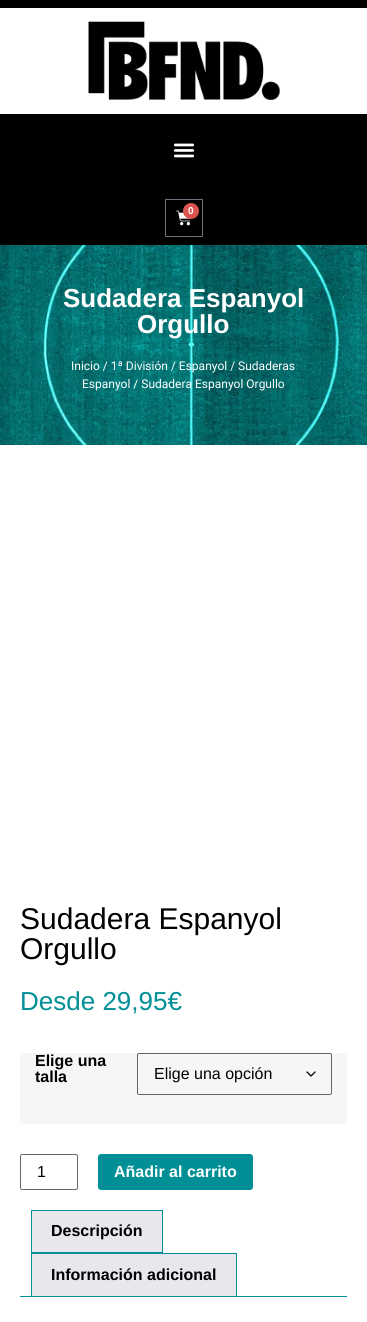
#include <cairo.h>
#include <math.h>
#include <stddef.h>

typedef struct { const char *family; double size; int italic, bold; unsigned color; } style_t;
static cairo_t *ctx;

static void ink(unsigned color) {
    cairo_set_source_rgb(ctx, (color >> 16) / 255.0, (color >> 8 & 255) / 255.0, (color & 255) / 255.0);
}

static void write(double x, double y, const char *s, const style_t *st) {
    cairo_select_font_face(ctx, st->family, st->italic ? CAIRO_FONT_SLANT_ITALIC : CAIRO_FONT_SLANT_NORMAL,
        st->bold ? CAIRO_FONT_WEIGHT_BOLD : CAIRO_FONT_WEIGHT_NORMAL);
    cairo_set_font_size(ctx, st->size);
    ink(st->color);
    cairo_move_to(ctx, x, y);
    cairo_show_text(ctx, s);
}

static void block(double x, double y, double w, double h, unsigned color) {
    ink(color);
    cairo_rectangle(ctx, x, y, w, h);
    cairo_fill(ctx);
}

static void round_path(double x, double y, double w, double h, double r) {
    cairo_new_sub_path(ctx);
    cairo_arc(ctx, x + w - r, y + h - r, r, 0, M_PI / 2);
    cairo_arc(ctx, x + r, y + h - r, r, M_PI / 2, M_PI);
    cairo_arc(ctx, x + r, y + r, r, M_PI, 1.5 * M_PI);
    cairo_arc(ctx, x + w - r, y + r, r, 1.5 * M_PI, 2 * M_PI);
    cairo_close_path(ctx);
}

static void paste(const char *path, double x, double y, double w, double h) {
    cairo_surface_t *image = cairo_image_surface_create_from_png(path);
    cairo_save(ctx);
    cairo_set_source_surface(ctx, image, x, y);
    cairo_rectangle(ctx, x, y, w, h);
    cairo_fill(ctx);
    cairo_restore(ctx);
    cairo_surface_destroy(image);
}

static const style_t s1 = {"Liberation Sans", 10, 0, 1, 0xffffff};
static const style_t s2 = {"Liberation Sans", 26, 0, 1, 0xffffff};
static const style_t s3 = {"Roboto", 12, 0, 0, 0xffffff};
static const style_t s4 = {"Liberation Sans", 30, 0, 0, 0x000000};
static const style_t s5 = {"Liberation Sans", 26, 0, 0, 0x008f95};
static const style_t s6 = {"Liberation Sans", 16, 0, 1, 0x000000};
static const style_t s7 = {"Liberation Sans", 16, 0, 0, 0x000000};
static const style_t s8 = {"Liberation Sans", 16, 0, 1, 0xffffff};

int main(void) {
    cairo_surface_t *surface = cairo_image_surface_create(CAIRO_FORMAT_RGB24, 367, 1322);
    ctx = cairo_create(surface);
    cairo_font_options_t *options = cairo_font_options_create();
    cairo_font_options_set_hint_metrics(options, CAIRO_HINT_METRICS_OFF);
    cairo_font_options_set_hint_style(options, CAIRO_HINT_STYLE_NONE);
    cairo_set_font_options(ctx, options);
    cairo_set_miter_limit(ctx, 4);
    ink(0xffffff);
    cairo_paint(ctx);
    block(0, 0, 367, 8, 0x000000);
    paste("pic1.png", 88, 21, 192, 79);
    block(0, 114, 367, 131, 0x000000);
    paste("pic2.png", 173, 143, 22, 15);
    cairo_rectangle(ctx, 165.5, 199.5, 37, 37);
    ink(0x69727d);
    cairo_set_line_width(ctx, 1);
    cairo_stroke(ctx);
    paste("pic3.png", 176, 210, 15, 16);
    ink(0xd9534f);
    cairo_arc(ctx, 191, 211, 8, 0, 2 * M_PI);
    cairo_fill(ctx);
    write(188, 214, "0", &s1);
    paste("pic4.png", 0, 245, 367, 200);
    write(63, 307, "Sudadera Espanyol", &s2);
    write(137, 333, "Orgullo", &s2);
    write(71, 370, "Inicio / 1ª División / Espanyol / Sudaderas", &s3);
    write(82, 388, "Espanyol / Sudadera Espanyol Orgullo", &s3);
    write(20, 929, "Sudadera Espanyol", &s4);
    write(20, 959, "Orgullo", &s4);
    write(20, 1010, "Desde 29,95€", &s5);
    block(20, 1053, 327, 71, 0xf6f6f6);
    write(35, 1066, "Elige una", &s6);
    write(35, 1082, "talla", &s6);
    cairo_new_path(ctx);
    cairo_move_to(ctx, 307, 1072);
    cairo_line_to(ctx, 311, 1076);
    cairo_line_to(ctx, 315, 1072);
    cairo_set_line_width(ctx, 1.3);
    cairo_set_line_cap(ctx, CAIRO_LINE_CAP_ROUND);
    cairo_set_line_join(ctx, CAIRO_LINE_JOIN_ROUND);
    cairo_stroke(ctx);
    round_path(137.5, 1053.5, 194, 41, 1.5);
    ink(0x666666);
    cairo_set_line_width(ctx, 1);
    cairo_set_line_cap(ctx, CAIRO_LINE_CAP_BUTT);
    cairo_set_line_join(ctx, CAIRO_LINE_JOIN_MITER);
    cairo_stroke(ctx);
    write(154, 1079, "Elige una opción", &s7);
    round_path(20.5, 1154.5, 57, 35, 1.5);
    ink(0x666666);
    cairo_stroke(ctx);
    write(37, 1177, "1", &s7);
    ink(0x008f95);
    round_path(98, 1154, 155, 36, 3);
    cairo_fill(ctx);
    write(114, 1177, "Añadir al carrito", &s8);
    ink(0xe9e6ed);
    cairo_rectangle(ctx, 31.5, 1210.5, 131, 42);
    cairo_fill_preserve(ctx);
    ink(0x008f95);
    cairo_stroke(ctx);
    write(51, 1236, "Descripción", &s6);
    block(20, 1296, 327, 1, 0x008f95);
    ink(0xe9e6ed);
    cairo_rectangle(ctx, 31.5, 1253.5, 205, 43);
    cairo_fill_preserve(ctx);
    ink(0x008f95);
    cairo_stroke(ctx);
    write(51, 1280, "Información adicional", &s6);
    cairo_surface_write_to_png(surface, "screenshot.png");
    cairo_font_options_destroy(options);
    cairo_destroy(ctx);
    cairo_surface_destroy(surface);
    return 0;
}
